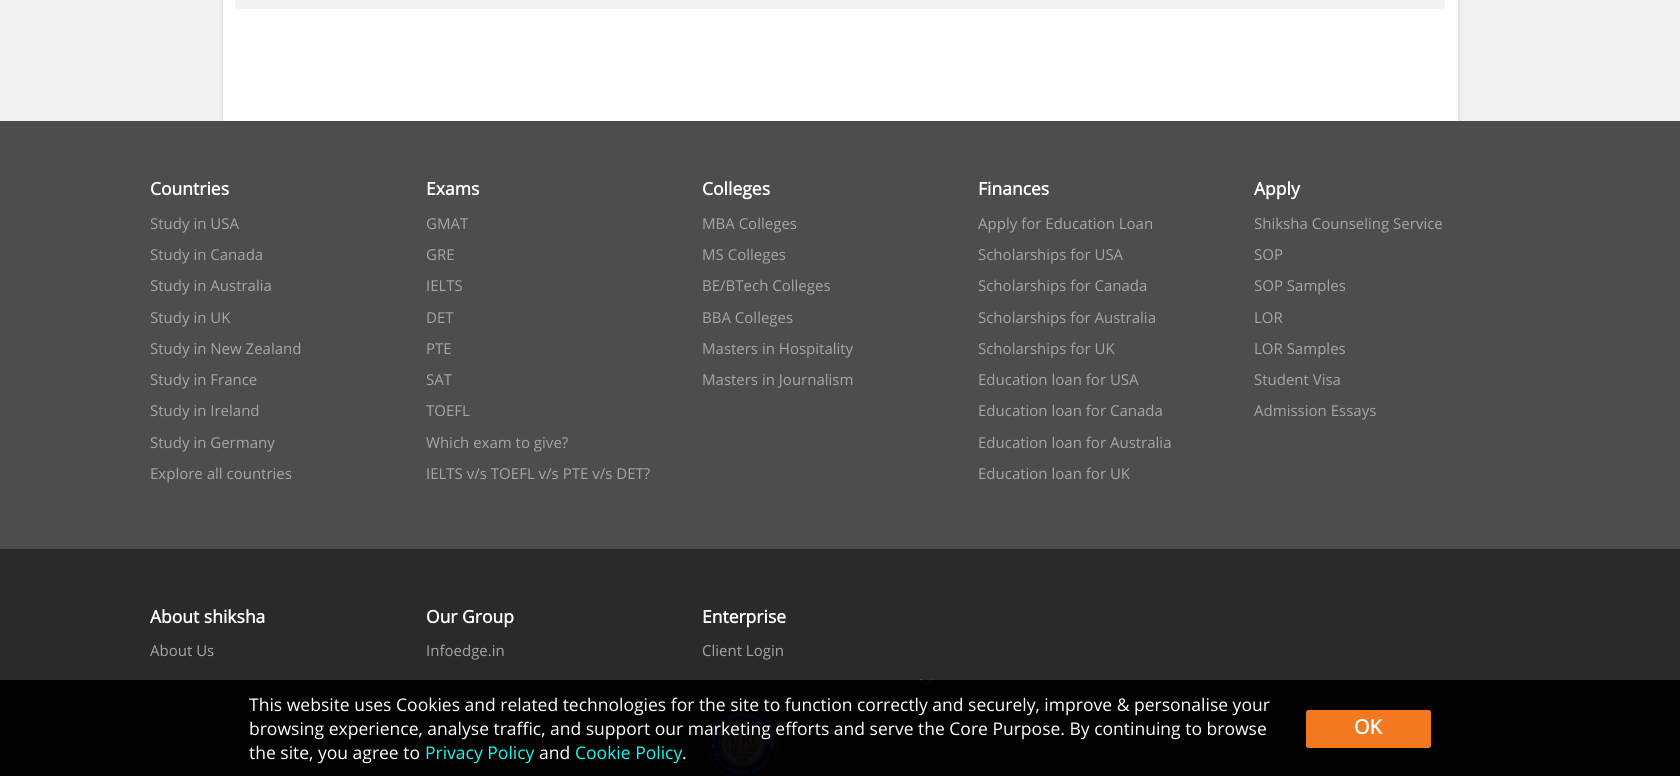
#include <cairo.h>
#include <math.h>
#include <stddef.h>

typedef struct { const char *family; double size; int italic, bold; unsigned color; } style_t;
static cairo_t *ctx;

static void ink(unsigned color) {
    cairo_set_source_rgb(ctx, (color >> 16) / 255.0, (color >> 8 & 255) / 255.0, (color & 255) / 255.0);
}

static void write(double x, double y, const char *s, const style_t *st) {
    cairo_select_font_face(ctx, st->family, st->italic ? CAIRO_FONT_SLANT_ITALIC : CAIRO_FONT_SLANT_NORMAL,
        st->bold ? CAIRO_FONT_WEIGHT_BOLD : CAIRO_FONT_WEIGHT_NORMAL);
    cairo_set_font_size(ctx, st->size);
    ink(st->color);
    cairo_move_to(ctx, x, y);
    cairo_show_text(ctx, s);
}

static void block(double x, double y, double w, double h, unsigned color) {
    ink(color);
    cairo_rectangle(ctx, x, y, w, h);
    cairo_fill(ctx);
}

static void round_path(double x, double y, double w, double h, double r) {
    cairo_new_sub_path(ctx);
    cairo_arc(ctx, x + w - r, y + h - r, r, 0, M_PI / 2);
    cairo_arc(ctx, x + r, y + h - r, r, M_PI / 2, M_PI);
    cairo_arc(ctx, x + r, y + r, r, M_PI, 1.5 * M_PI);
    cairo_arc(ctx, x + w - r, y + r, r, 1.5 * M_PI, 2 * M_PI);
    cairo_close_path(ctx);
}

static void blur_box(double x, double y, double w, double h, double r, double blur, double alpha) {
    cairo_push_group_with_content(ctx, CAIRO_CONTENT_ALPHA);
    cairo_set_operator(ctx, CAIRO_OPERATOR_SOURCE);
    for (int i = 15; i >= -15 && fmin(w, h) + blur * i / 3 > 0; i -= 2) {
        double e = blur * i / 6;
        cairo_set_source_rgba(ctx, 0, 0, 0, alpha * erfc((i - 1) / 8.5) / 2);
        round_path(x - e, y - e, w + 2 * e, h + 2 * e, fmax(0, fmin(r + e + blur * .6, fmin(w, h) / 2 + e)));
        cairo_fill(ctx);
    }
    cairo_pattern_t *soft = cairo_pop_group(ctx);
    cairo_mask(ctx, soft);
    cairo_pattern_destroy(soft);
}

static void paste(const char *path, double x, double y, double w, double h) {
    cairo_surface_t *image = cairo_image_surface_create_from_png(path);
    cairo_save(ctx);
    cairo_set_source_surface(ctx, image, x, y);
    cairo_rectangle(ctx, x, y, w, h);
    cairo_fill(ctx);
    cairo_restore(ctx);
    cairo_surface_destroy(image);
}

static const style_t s1 = {"Open Sans", 17.5, 0, 1, 0xffffff};
static const style_t s2 = {"Open Sans", 15, 0, 0, 0xa6a6a6};
static const style_t s3 = {"Open Sans", 17.5, 0, 0, 0xffffff};
static const style_t s4 = {"Open Sans", 17.5, 0, 0, 0x0efbf3};
static const style_t s5 = {"Open Sans", 20, 0, 1, 0xffffff};

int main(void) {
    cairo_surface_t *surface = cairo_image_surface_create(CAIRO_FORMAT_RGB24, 1680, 776);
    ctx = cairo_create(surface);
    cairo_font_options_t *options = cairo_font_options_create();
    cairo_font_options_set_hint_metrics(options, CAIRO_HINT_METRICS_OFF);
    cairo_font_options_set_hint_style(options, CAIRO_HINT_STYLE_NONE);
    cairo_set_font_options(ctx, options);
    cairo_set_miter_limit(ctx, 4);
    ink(0xf1f1f1);
    cairo_paint(ctx);
    ink(0xcacaca);
    blur_box(223, -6, 1235, 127, 0, 2, 1);
    block(223, 0, 1235, 121, 0xffffff);
    ink(0xf2f2f2);
    round_path(235, -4, 1210, 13, 4);
    cairo_fill(ctx);
    block(0, 549, 1680, 227, 0x2a2a2a);
    block(0, 121, 1680, 428, 0x4d4d4d);
    write(150, 195, "Countries", &s1);
    write(150, 229, "Study in USA", &s2);
    write(150, 260, "Study in Canada", &s2);
    write(150, 291, "Study in Australia", &s2);
    write(150, 323, "Study in UK", &s2);
    write(150, 354, "Study in New Zealand", &s2);
    write(150, 385, "Study in France", &s2);
    write(150, 416, "Study in Ireland", &s2);
    write(150, 448, "Study in Germany", &s2);
    write(150, 479, "Explore all countries", &s2);
    write(426, 195, "Exams", &s1);
    write(426, 229, "GMAT", &s2);
    write(426, 260, "GRE", &s2);
    write(426, 291, "IELTS", &s2);
    write(426, 323, "DET", &s2);
    write(426, 354, "PTE", &s2);
    write(426, 385, "SAT", &s2);
    write(426, 416, "TOEFL", &s2);
    write(426, 448, "Which exam to give?", &s2);
    write(426, 479, "IELTS v/s TOEFL v/s PTE v/s DET?", &s2);
    write(702, 195, "Colleges", &s1);
    write(702, 229, "MBA Colleges", &s2);
    write(702, 260, "MS Colleges", &s2);
    write(702, 291, "BE/BTech Colleges", &s2);
    write(702, 323, "BBA Colleges", &s2);
    write(702, 354, "Masters in Hospitality", &s2);
    write(702, 385, "Masters in Journalism", &s2);
    write(978, 195, "Finances", &s1);
    write(978, 229, "Apply for Education Loan", &s2);
    write(978, 260, "Scholarships for USA", &s2);
    write(978, 291, "Scholarships for Canada", &s2);
    write(978, 323, "Scholarships for Australia", &s2);
    write(978, 354, "Scholarships for UK", &s2);
    write(978, 385, "Education loan for USA", &s2);
    write(978, 416, "Education loan for Canada", &s2);
    write(978, 448, "Education loan for Australia", &s2);
    write(978, 479, "Education loan for UK", &s2);
    write(1254, 195, "Apply", &s1);
    write(1254, 229, "Shiksha Counseling Service", &s2);
    write(1254, 260, "SOP", &s2);
    write(1254, 291, "SOP Samples", &s2);
    write(1254, 323, "LOR", &s2);
    write(1254, 354, "LOR Samples", &s2);
    write(1254, 385, "Student Visa", &s2);
    write(1254, 416, "Admission Essays", &s2);
    write(150, 623, "About shiksha", &s1);
    write(150, 656, "About Us", &s2);
    write(426, 623, "Our Group", &s1);
    write(426, 656, "Infoedge.in", &s2);
    write(702, 623, "Enterprise", &s1);
    write(702, 656, "Client Login", &s2);
    paste("pic1.png", 920, 679, 13, 7);
    paste("pic2.png", 703, 704, 79, 72);
    cairo_set_source_rgba(ctx, 0, 0, 0, 0.95);
    cairo_rectangle(ctx, 0, 680, 1680, 96);
    cairo_fill(ctx);
    write(249, 711, "This website uses Cookies and related technologies for the site to function correctly and securely, improve & personalise your", &s3);
    write(249, 735, "browsing experience, analyse traffic, and support our marketing efforts and serve the Core Purpose. By continuing to browse", &s3);
    write(249, 759, "the site, you agree to", &s3);
    write(425, 759, "Privacy Policy", &s4);
    write(539, 759, "and", &s3);
    write(575, 759, "Cookie Policy", &s4);
    write(682, 759, ".", &s3);
    ink(0xf37921);
    round_path(1306, 710, 125, 38, 2.5);
    cairo_fill(ctx);
    write(1354, 734, "OK", &s5);
    cairo_surface_write_to_png(surface, "screenshot.png");
    cairo_font_options_destroy(options);
    cairo_destroy(ctx);
    cairo_surface_destroy(surface);
    return 0;
}
